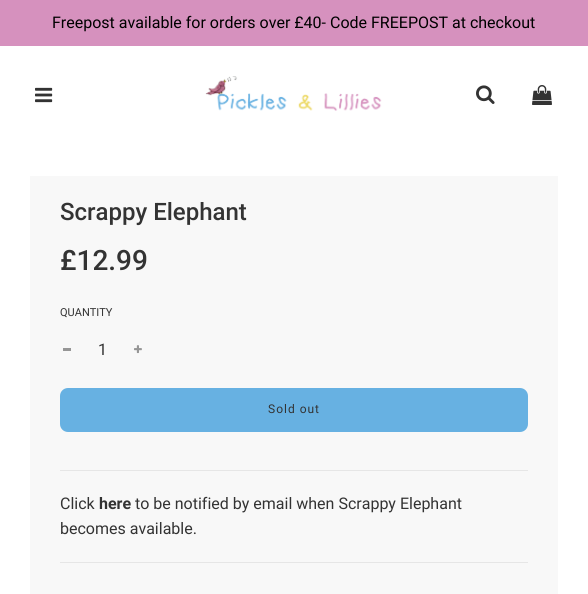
#include <cairo.h>
#include <math.h>
#include <stddef.h>

typedef struct { const char *family; double size; int italic, bold; unsigned color; } style_t;
static cairo_t *ctx;

static void ink(unsigned color) {
    cairo_set_source_rgb(ctx, (color >> 16) / 255.0, (color >> 8 & 255) / 255.0, (color & 255) / 255.0);
}

static void write(double x, double y, const char *s, const style_t *st) {
    cairo_select_font_face(ctx, st->family, st->italic ? CAIRO_FONT_SLANT_ITALIC : CAIRO_FONT_SLANT_NORMAL,
        st->bold ? CAIRO_FONT_WEIGHT_BOLD : CAIRO_FONT_WEIGHT_NORMAL);
    cairo_set_font_size(ctx, st->size);
    ink(st->color);
    cairo_move_to(ctx, x, y);
    cairo_show_text(ctx, s);
}

static void write_spaced(double x, double y, const char *s, double letter, double word) {
    cairo_move_to(ctx, x, y);
    while (*s) {
        char ch[5] = {0};
        int n = 0;
        do ch[n++] = *s++; while ((*s & 0xC0) == 0x80);
        cairo_show_text(ctx, ch);
        cairo_rel_move_to(ctx, letter + word * (*ch == ' '), 0);
    }
}

static void block(double x, double y, double w, double h, unsigned color) {
    ink(color);
    cairo_rectangle(ctx, x, y, w, h);
    cairo_fill(ctx);
}

static void round_path(double x, double y, double w, double h, double r) {
    cairo_new_sub_path(ctx);
    cairo_arc(ctx, x + w - r, y + h - r, r, 0, M_PI / 2);
    cairo_arc(ctx, x + r, y + h - r, r, M_PI / 2, M_PI);
    cairo_arc(ctx, x + r, y + r, r, M_PI, 1.5 * M_PI);
    cairo_arc(ctx, x + w - r, y + r, r, 1.5 * M_PI, 2 * M_PI);
    cairo_close_path(ctx);
}

static void paste(const char *path, double x, double y, double w, double h) {
    cairo_surface_t *image = cairo_image_surface_create_from_png(path);
    cairo_save(ctx);
    cairo_set_source_surface(ctx, image, x, y);
    cairo_rectangle(ctx, x, y, w, h);
    cairo_fill(ctx);
    cairo_restore(ctx);
    cairo_surface_destroy(image);
}

static const style_t s1 = {"Roboto", 16, 0, 0, 0x000000};
static const style_t s2 = {"Roboto Medium", 24, 0, 0, 0x333333};
static const style_t s3 = {"Roboto Medium", 28, 0, 0, 0x333333};
static const style_t s4 = {"Roboto", 11, 0, 0, 0x333333};
static const style_t s5 = {"Roboto", 16, 0, 0, 0x333333};
static const style_t s6 = {"Roboto", 16, 0, 1, 0x333333};

int main(void) {
    cairo_surface_t *surface = cairo_image_surface_create(CAIRO_FORMAT_RGB24, 588, 594);
    ctx = cairo_create(surface);
    cairo_font_options_t *options = cairo_font_options_create();
    cairo_font_options_set_hint_metrics(options, CAIRO_HINT_METRICS_OFF);
    cairo_font_options_set_hint_style(options, CAIRO_HINT_STYLE_NONE);
    cairo_set_font_options(ctx, options);
    cairo_set_miter_limit(ctx, 4);
    ink(0xffffff);
    cairo_paint(ctx);
    block(0, 0, 588, 46, 0xd691be);
    write(52, 28, "Freepost available for orders over £40- Code FREEPOST at checkout", &s1);
    paste("pic1.png", 35, 87, 18, 16);
    paste("pic2.png", 205, 76, 177, 35);
    paste("pic3.png", 476, 85, 19, 19);
    paste("pic4.png", 532, 85, 20, 20);
    block(30, 176, 528, 418, 0xf8f8f8);
    write(60, 220, "Scrappy Elephant", &s2);
    write(60, 270, "£12.99", &s3);
    write(60, 316, "QUANTITY", &s4);
    block(63, 348, 8, 3, 0x969696);
    write(98, 355, "1", &s5);
    paste("pic5.png", 134, 345, 8, 9);
    ink(0x67b1e2);
    round_path(60, 388, 468, 44, 8);
    cairo_fill(ctx);
    cairo_set_font_size(ctx, 12);
    ink(0x333333);
    write_spaced(268, 413, "Sold out", 1, 0);
    block(60, 470, 468, 1, 0xe6e6e6);
    block(60, 562, 468, 1, 0xe6e6e6);
    write(60, 509, "Click", &s5);
    write(99, 509, "here", &s6);
    write(135, 509, "to be notified by email when Scrappy Elephant", &s5);
    write(60, 534, "becomes available.", &s5);
    cairo_surface_write_to_png(surface, "screenshot.png");
    cairo_font_options_destroy(options);
    cairo_destroy(ctx);
    cairo_surface_destroy(surface);
    return 0;
}
